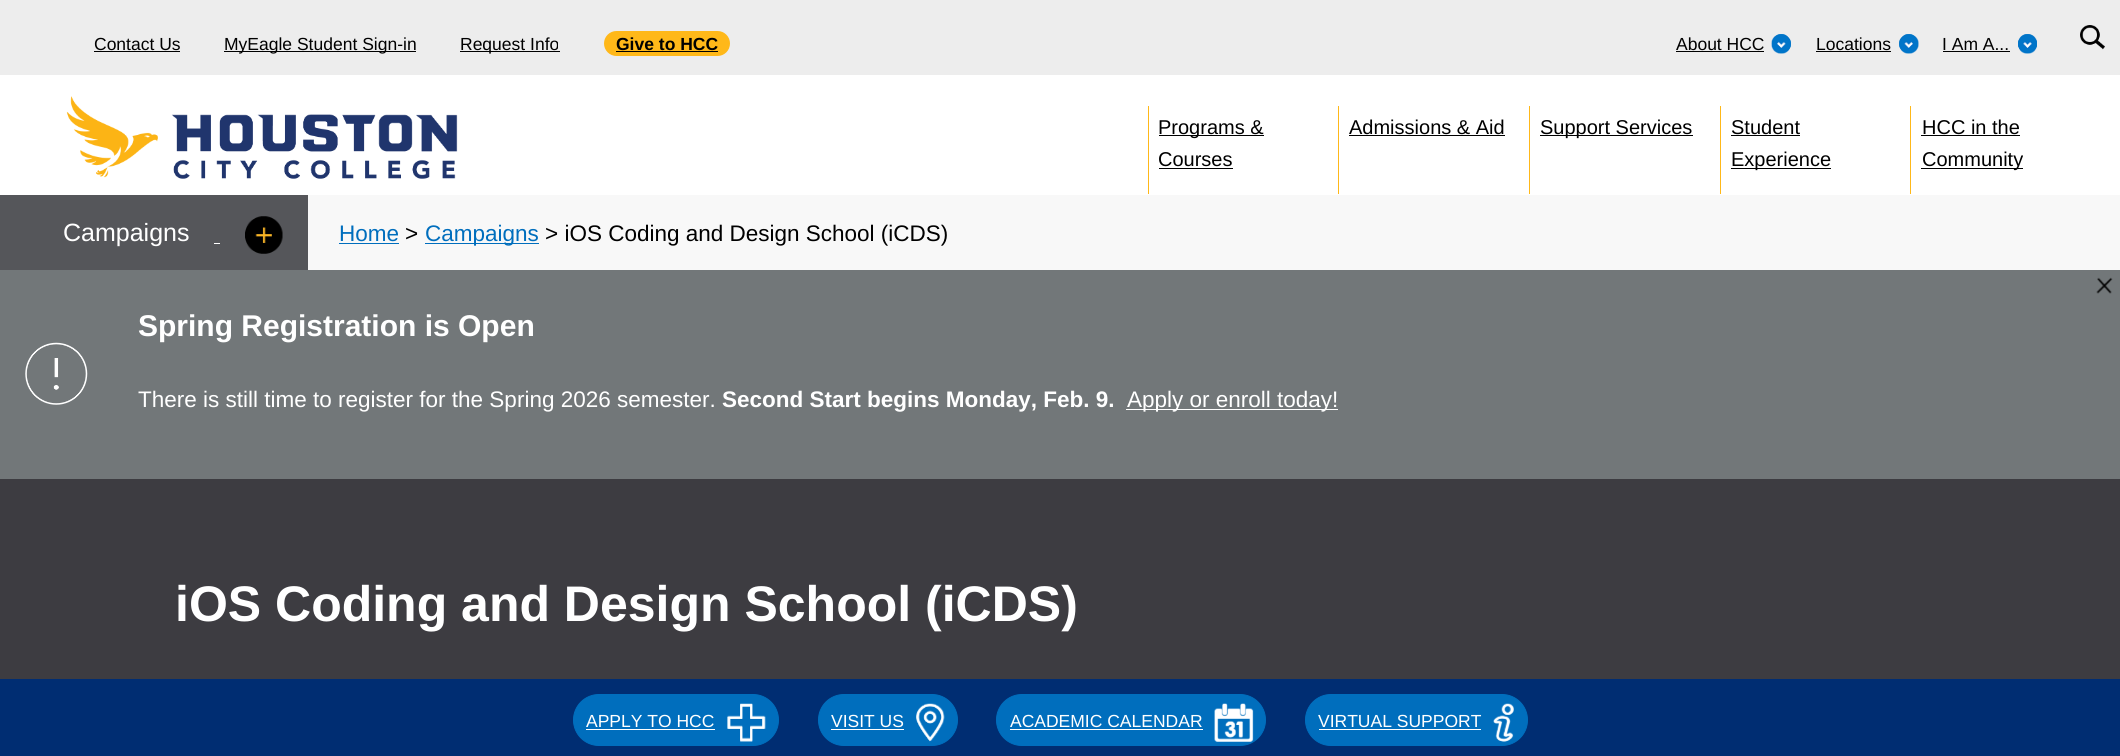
#include <cairo.h>
#include <math.h>
#include <stddef.h>

typedef struct { const char *family; double size; int italic, bold; unsigned color; } style_t;
static cairo_t *ctx;

static void ink(unsigned color) {
    cairo_set_source_rgb(ctx, (color >> 16) / 255.0, (color >> 8 & 255) / 255.0, (color & 255) / 255.0);
}

static void write(double x, double y, const char *s, const style_t *st) {
    cairo_select_font_face(ctx, st->family, st->italic ? CAIRO_FONT_SLANT_ITALIC : CAIRO_FONT_SLANT_NORMAL,
        st->bold ? CAIRO_FONT_WEIGHT_BOLD : CAIRO_FONT_WEIGHT_NORMAL);
    cairo_set_font_size(ctx, st->size);
    ink(st->color);
    cairo_move_to(ctx, x, y);
    cairo_show_text(ctx, s);
}

static void block(double x, double y, double w, double h, unsigned color) {
    ink(color);
    cairo_rectangle(ctx, x, y, w, h);
    cairo_fill(ctx);
}

static void round_path(double x, double y, double w, double h, double r) {
    cairo_new_sub_path(ctx);
    cairo_arc(ctx, x + w - r, y + h - r, r, 0, M_PI / 2);
    cairo_arc(ctx, x + r, y + h - r, r, M_PI / 2, M_PI);
    cairo_arc(ctx, x + r, y + r, r, M_PI, 1.5 * M_PI);
    cairo_arc(ctx, x + w - r, y + r, r, 1.5 * M_PI, 2 * M_PI);
    cairo_close_path(ctx);
}

static void paste(const char *path, double x, double y, double w, double h) {
    cairo_surface_t *image = cairo_image_surface_create_from_png(path);
    cairo_save(ctx);
    cairo_set_source_surface(ctx, image, x, y);
    cairo_rectangle(ctx, x, y, w, h);
    cairo_fill(ctx);
    cairo_restore(ctx);
    cairo_surface_destroy(image);
}

static const style_t s1 = {"Liberation Sans", 17.5, 0, 0, 0x000000};
static const style_t s2 = {"Liberation Sans", 17.5, 0, 1, 0x000000};
static const style_t s3 = {"Liberation Sans", 20, 0, 0, 0x000000};
static const style_t s4 = {"Liberation Sans", 25, 0, 0, 0xffffff};
static const style_t s5 = {"Liberation Sans", 22.5, 0, 0, 0x006ebd};
static const style_t s6 = {"Liberation Sans", 22.5, 0, 0, 0x000000};
static const style_t s7 = {"Liberation Sans", 30, 0, 1, 0xffffff};
static const style_t s8 = {"Liberation Sans", 22.5, 0, 0, 0xffffff};
static const style_t s9 = {"Liberation Sans", 22.5, 0, 1, 0xffffff};
static const style_t s10 = {"Liberation Sans", 50, 0, 1, 0xffffff};
static const style_t s11 = {"Liberation Sans", 17.5, 0, 0, 0xffffff};

int main(void) {
    cairo_surface_t *surface = cairo_image_surface_create(CAIRO_FORMAT_RGB24, 2120, 756);
    ctx = cairo_create(surface);
    cairo_font_options_t *options = cairo_font_options_create();
    cairo_font_options_set_hint_metrics(options, CAIRO_HINT_METRICS_OFF);
    cairo_font_options_set_hint_style(options, CAIRO_HINT_STYLE_NONE);
    cairo_set_font_options(ctx, options);
    cairo_set_miter_limit(ctx, 4);
    ink(0x3d3c41);
    cairo_paint(ctx);
    block(0, 0, 2120, 75, 0xededed);
    write(94, 50, "Contact Us", &s1);
    block(94, 51, 86, 1, 0x000000);
    block(224, 51, 192, 1, 0x000000);
    write(224, 50, "MyEagle Student Sign-in", &s1);
    block(460, 51, 100, 1, 0x000000);
    write(460, 50, "Request Info", &s1);
    ink(0xffb819);
    round_path(604, 31, 126, 25, 12.5);
    cairo_fill(ctx);
    write(616, 50, "Give to HCC", &s2);
    block(616, 51, 102, 1, 0x000000);
    paste("pic1.png", 1771, 34, 20, 20);
    write(1676, 50, "About HCC", &s1);
    block(1676, 51, 88, 1, 0x000000);
    paste("pic2.png", 1771, 34, 20, 20);
    paste("pic3.png", 1899, 34, 20, 20);
    write(1816, 50, "Locations", &s1);
    block(1816, 51, 75, 1, 0x000000);
    paste("pic4.png", 1899, 34, 20, 20);
    paste("pic5.png", 2018, 34, 19, 20);
    write(1942, 50, "I Am A...", &s1);
    block(1943, 51, 67, 1, 0x000000);
    paste("pic6.png", 2018, 34, 19, 20);
    paste("pic7.png", 2080, 25, 25, 25);
    block(0, 75, 2120, 120, 0xffffff);
    paste("pic8.png", 66, 96, 392, 83);
    block(1148, 106, 1, 88, 0xffb819);
    block(1159, 135, 105, 1, 0x000000);
    write(1158, 134, "Programs &", &s3);
    write(1158, 166, "Courses", &s3);
    block(1159, 168, 74, 1, 0x000000);
    block(1338, 106, 1, 88, 0xffb819);
    write(1349, 134, "Admissions & Aid", &s3);
    block(1349, 135, 156, 1, 0x000000);
    block(1529, 106, 1, 88, 0xffb819);
    block(1540, 135, 153, 1, 0x000000);
    write(1540, 134, "Support Services", &s3);
    block(1720, 106, 1, 88, 0xffb819);
    write(1731, 134, "Student", &s3);
    block(1731, 135, 69, 1, 0x000000);
    block(1731, 168, 100, 1, 0x000000);
    write(1731, 166, "Experience", &s3);
    block(1910, 106, 1, 88, 0xffb819);
    write(1922, 134, "HCC in the", &s3);
    block(1921, 135, 99, 1, 0x000000);
    block(1921, 168, 102, 1, 0x000000);
    write(1922, 166, "Community", &s3);
    block(308, 195, 1812, 75, 0xf8f8f8);
    block(0, 195, 308, 75, 0x55565a);
    write(63, 241, "Campaigns", &s4);
    block(214, 243, 6, 1, 0xffffff);
    paste("pic9.png", 245, 216, 38, 38);
    write(339, 241, "Home", &s5);
    block(339, 243, 60, 1, 0x006ebd);
    write(405, 241, ">", &s6);
    block(425, 243, 114, 1, 0x006ebd);
    write(425, 241, "Campaigns", &s5);
    write(545, 241, "> iOS Coding and Design School (iCDS)", &s6);
    block(0, 270, 2120, 209, 0x727779);
    paste("pic10.png", 25, 342, 63, 63);
    paste("pic11.png", 2096, 277, 17, 17);
    write(138, 336, "Spring Registration is Open", &s7);
    write(138, 407, "There is still time to register for the Spring 2026 semester.", &s8);
    write(722, 407, "Second Start begins Monday, Feb. 9.", &s9);
    block(1126, 409, 212, 1, 0xffffff);
    write(1127, 407, "Apply or enroll today!", &s8);
    write(175, 621, "iOS Coding and Design School (iCDS)", &s10);
    block(0, 679, 2120, 77, 0x002d72);
    ink(0x006ebd);
    round_path(573.5, 694.5, 205, 51, 25.5);
    cairo_fill_preserve(ctx);
    cairo_set_line_width(ctx, 1);
    cairo_stroke(ctx);
    paste("pic12.png", 727, 703, 39, 39);
    write(586, 727, "APPLY TO HCC", &s11);
    block(586, 729, 129, 1, 0xffffff);
    paste("pic13.png", 727, 704, 39, 38);
    ink(0x006ebd);
    round_path(818.5, 694.5, 139, 51, 25.5);
    cairo_fill_preserve(ctx);
    cairo_stroke(ctx);
    paste("pic14.png", 916, 703, 29, 39);
    write(831, 727, "VISIT US", &s11);
    block(831, 729, 73, 1, 0xffffff);
    paste("pic15.png", 916, 704, 29, 38);
    ink(0x006ebd);
    round_path(996.5, 694.5, 269, 51, 25.5);
    cairo_fill_preserve(ctx);
    cairo_stroke(ctx);
    paste("pic16.png", 1214, 703, 39, 39);
    write(1010, 727, "ACADEMIC CALENDAR", &s11);
    block(1010, 729, 193, 1, 0xffffff);
    paste("pic17.png", 1214, 704, 40, 38);
    ink(0x006ebd);
    round_path(1305.5, 694.5, 222, 51, 25.5);
    cairo_fill_preserve(ctx);
    cairo_stroke(ctx);
    paste("pic18.png", 1493, 703, 21, 39);
    write(1318, 727, "VIRTUAL SUPPORT", &s11);
    block(1319, 729, 162, 1, 0xffffff);
    paste("pic19.png", 1493, 704, 21, 38);
    cairo_surface_write_to_png(surface, "screenshot.png");
    cairo_font_options_destroy(options);
    cairo_destroy(ctx);
    cairo_surface_destroy(surface);
    return 0;
}
